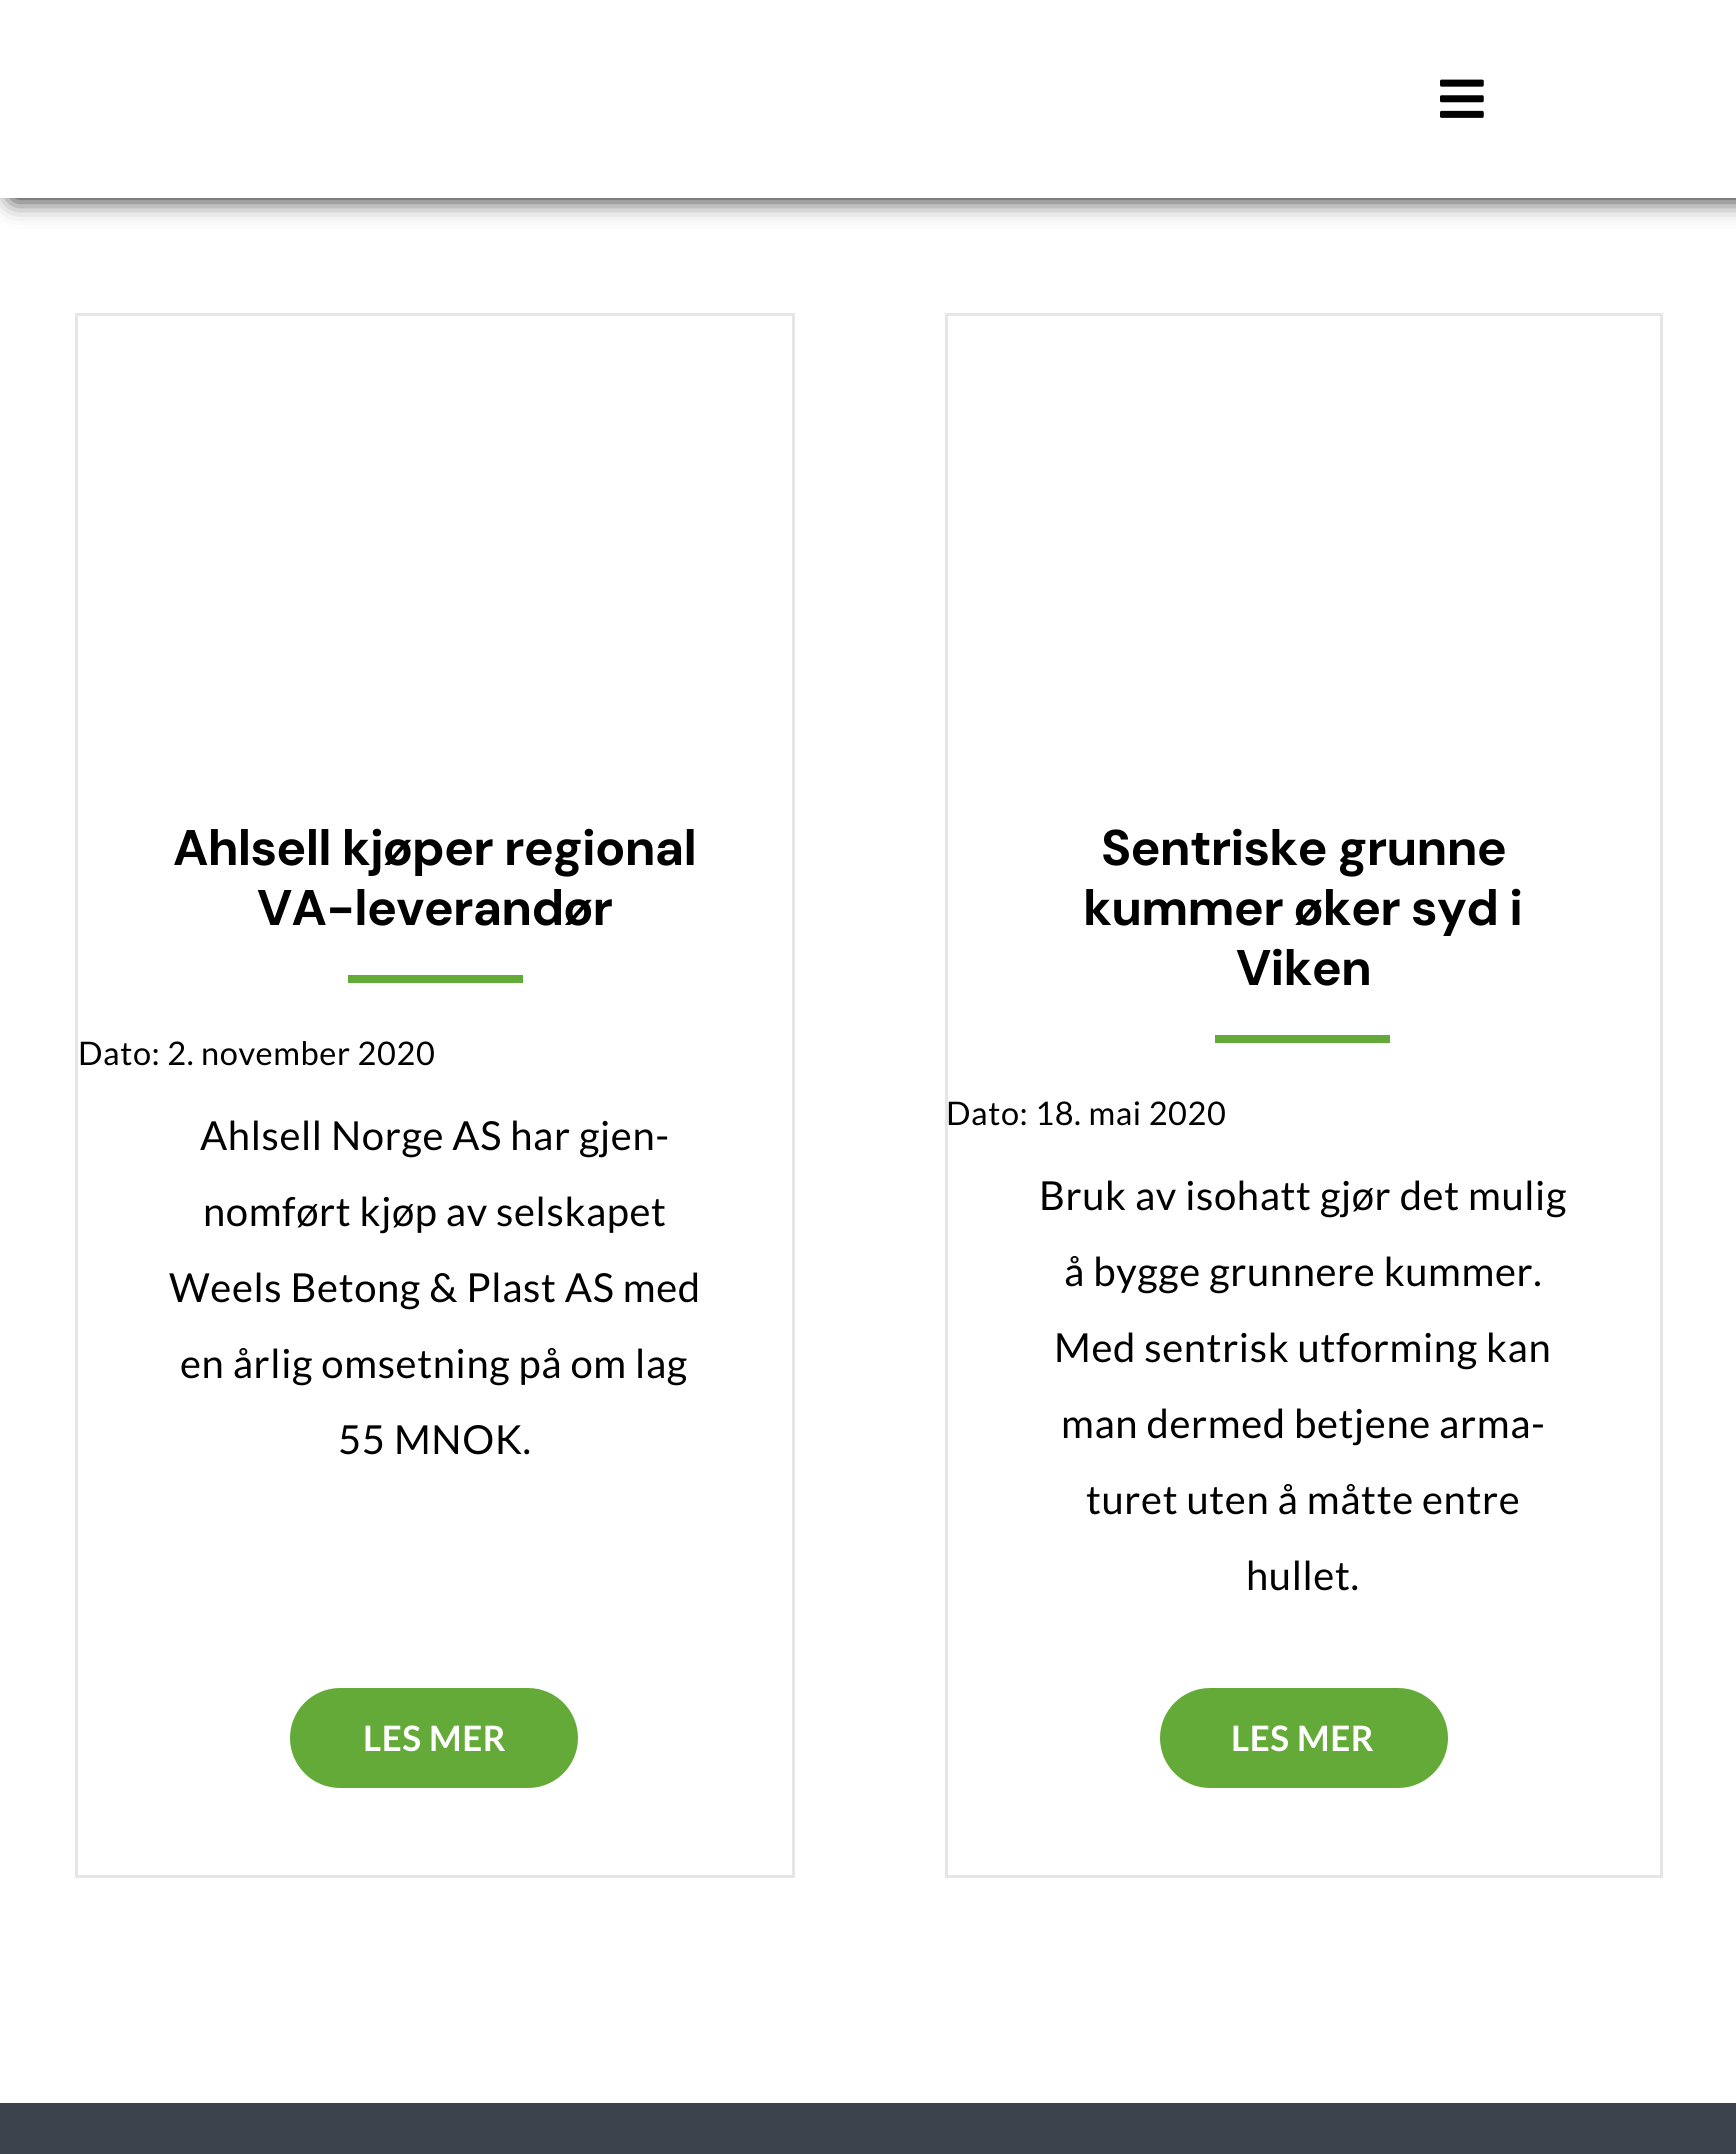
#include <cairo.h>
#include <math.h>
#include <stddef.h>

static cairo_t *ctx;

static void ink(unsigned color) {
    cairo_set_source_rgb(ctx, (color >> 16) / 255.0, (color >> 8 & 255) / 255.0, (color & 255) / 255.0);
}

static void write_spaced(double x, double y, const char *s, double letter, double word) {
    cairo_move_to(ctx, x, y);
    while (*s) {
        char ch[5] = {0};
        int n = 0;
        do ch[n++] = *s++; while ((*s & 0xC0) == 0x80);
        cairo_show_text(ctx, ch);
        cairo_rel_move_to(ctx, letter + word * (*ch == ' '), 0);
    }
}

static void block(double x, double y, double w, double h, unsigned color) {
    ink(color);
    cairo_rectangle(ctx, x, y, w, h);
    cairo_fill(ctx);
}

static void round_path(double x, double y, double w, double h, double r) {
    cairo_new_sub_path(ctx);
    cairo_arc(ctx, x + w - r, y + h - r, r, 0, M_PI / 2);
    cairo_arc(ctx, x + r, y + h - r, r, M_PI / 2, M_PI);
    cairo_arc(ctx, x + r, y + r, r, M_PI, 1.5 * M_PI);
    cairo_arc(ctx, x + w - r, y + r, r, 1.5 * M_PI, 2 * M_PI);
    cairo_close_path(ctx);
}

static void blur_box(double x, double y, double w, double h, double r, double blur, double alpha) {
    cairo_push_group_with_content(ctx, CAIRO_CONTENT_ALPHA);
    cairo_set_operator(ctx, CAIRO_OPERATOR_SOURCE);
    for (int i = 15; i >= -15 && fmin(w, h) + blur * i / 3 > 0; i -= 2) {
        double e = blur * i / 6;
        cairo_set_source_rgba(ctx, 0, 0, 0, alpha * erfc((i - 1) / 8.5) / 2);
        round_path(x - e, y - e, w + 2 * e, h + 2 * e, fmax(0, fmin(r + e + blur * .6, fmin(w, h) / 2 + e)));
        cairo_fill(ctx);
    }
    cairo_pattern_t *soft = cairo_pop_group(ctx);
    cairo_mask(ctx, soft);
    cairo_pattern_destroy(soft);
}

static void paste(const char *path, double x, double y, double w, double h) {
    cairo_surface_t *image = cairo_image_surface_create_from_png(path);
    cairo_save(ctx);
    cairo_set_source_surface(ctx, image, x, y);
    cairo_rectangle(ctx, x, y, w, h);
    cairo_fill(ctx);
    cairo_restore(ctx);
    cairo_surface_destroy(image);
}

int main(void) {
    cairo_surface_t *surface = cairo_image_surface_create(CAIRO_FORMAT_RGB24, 1736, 2154);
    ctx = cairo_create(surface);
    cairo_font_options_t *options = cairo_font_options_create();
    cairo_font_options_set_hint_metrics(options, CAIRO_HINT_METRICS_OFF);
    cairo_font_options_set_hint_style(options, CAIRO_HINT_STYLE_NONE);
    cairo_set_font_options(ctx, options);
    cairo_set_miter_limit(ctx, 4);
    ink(0xffffff);
    cairo_paint(ctx);
    ink(0x000000);
    blur_box(13, 0, 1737, 198, 0, 12.5, 1);
    block(0, 0, 1736, 198, 0xffffff);
    paste("pic1.png", 1440, 79, 44, 39);
    cairo_rectangle(ctx, 76.5, 314.5, 717, 1562);
    ink(0xe6e6e6);
    cairo_set_line_width(ctx, 3);
    cairo_stroke(ctx);
    cairo_select_font_face(ctx, "DM Sans", CAIRO_FONT_SLANT_NORMAL, CAIRO_FONT_WEIGHT_BOLD);
    cairo_set_font_size(ctx, 50);
    ink(0x000000);
    write_spaced(173, 865, "Ahlsell kjøper regional", -0.75, 0);
    write_spaced(257, 925, "VA-leverandør", -0.75, 0);
    block(348, 975, 175, 8, 0x64aa38);
    cairo_select_font_face(ctx, "Lato", CAIRO_FONT_SLANT_NORMAL, CAIRO_FONT_WEIGHT_NORMAL);
    cairo_set_font_size(ctx, 32.5);
    ink(0x000000);
    write_spaced(78, 1065, "Dato: 2. november 2020", 0.6, 0);
    cairo_set_font_size(ctx, 40);
    write_spaced(200, 1150, "Ahlsell Norge AS har gjen-", 0.6, 0);
    write_spaced(203, 1226, "nomført kjøp av selskapet", 0.6, 0);
    write_spaced(169, 1302, "Weels Betong & Plast AS med", 0.6, 0);
    write_spaced(180, 1378, "en årlig omsetning på om lag", 0.6, 0);
    write_spaced(338, 1454, "55 MNOK.", 0.6, 0);
    ink(0x64aa38);
    round_path(290, 1688, 288, 100, 50);
    cairo_fill(ctx);
    cairo_select_font_face(ctx, "Lato", CAIRO_FONT_SLANT_NORMAL, CAIRO_FONT_WEIGHT_BOLD);
    cairo_set_font_size(ctx, 35);
    ink(0xffffff);
    write_spaced(363, 1751, "LES MER", 0.6, 0);
    cairo_rectangle(ctx, 946.5, 314.5, 715, 1562);
    ink(0xe6e6e6);
    cairo_stroke(ctx);
    cairo_select_font_face(ctx, "DM Sans", CAIRO_FONT_SLANT_NORMAL, CAIRO_FONT_WEIGHT_BOLD);
    cairo_set_font_size(ctx, 50);
    ink(0x000000);
    write_spaced(1101, 865, "Sentriske grunne", -0.75, 0);
    write_spaced(1083, 925, "kummer øker syd i", -0.75, 0);
    write_spaced(1236, 985, "Viken", -0.75, 0);
    block(1215, 1035, 175, 8, 0x64aa38);
    cairo_select_font_face(ctx, "Lato", CAIRO_FONT_SLANT_NORMAL, CAIRO_FONT_WEIGHT_NORMAL);
    cairo_set_font_size(ctx, 32.5);
    ink(0x000000);
    write_spaced(946, 1125, "Dato: 18. mai 2020", 0.6, 0);
    cairo_set_font_size(ctx, 40);
    write_spaced(1039, 1210, "Bruk av isohatt gjør det mulig", 0.6, 0);
    write_spaced(1064, 1286, "å bygge grunnere kummer.", 0.6, 0);
    write_spaced(1054, 1362, "Med sentrisk utforming kan", 0.6, 0);
    write_spaced(1061, 1438, "man dermed betjene arma-", 0.6, 0);
    write_spaced(1086, 1514, "turet uten å måtte entre", 0.6, 0);
    write_spaced(1246, 1590, "hullet.", 0.6, 0);
    ink(0x64aa38);
    round_path(1160, 1688, 288, 100, 50);
    cairo_fill(ctx);
    cairo_select_font_face(ctx, "Lato", CAIRO_FONT_SLANT_NORMAL, CAIRO_FONT_WEIGHT_BOLD);
    cairo_set_font_size(ctx, 35);
    ink(0xffffff);
    write_spaced(1231, 1751, "LES MER", 0.6, 0);
    block(0, 2103, 1736, 51, 0x3c434c);
    cairo_surface_write_to_png(surface, "screenshot.png");
    cairo_font_options_destroy(options);
    cairo_destroy(ctx);
    cairo_surface_destroy(surface);
    return 0;
}
